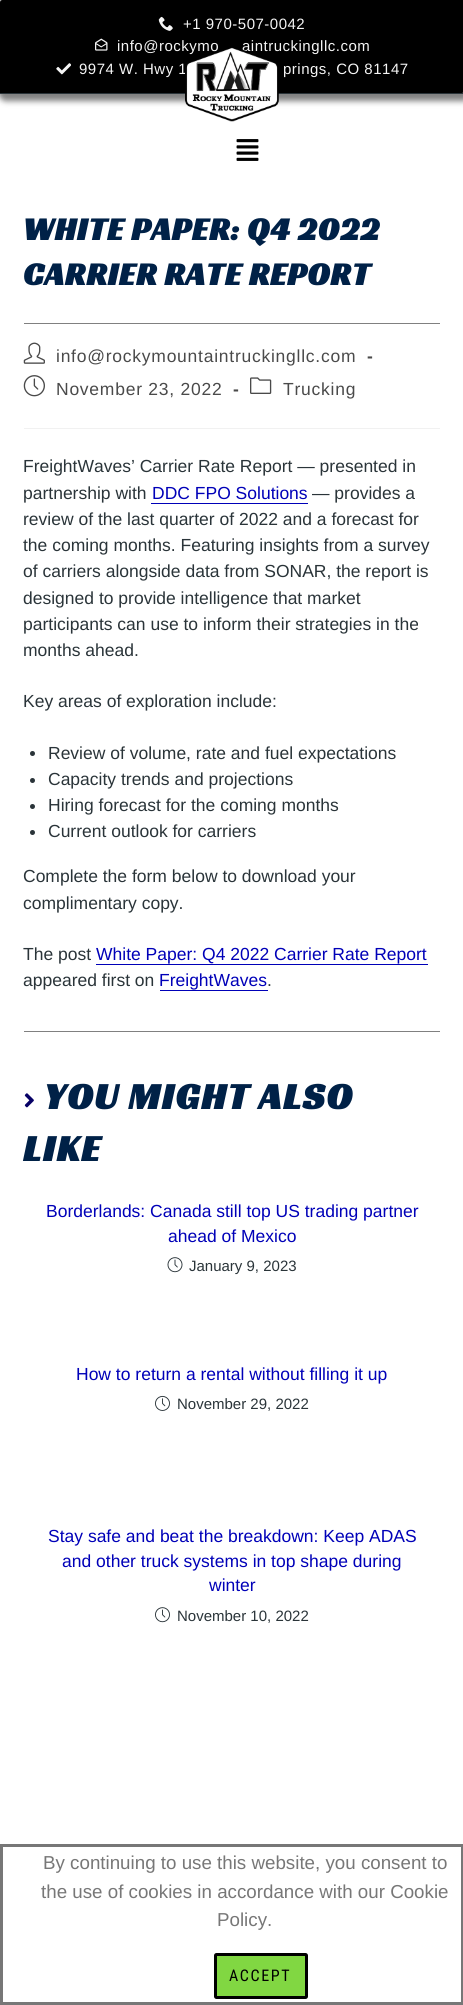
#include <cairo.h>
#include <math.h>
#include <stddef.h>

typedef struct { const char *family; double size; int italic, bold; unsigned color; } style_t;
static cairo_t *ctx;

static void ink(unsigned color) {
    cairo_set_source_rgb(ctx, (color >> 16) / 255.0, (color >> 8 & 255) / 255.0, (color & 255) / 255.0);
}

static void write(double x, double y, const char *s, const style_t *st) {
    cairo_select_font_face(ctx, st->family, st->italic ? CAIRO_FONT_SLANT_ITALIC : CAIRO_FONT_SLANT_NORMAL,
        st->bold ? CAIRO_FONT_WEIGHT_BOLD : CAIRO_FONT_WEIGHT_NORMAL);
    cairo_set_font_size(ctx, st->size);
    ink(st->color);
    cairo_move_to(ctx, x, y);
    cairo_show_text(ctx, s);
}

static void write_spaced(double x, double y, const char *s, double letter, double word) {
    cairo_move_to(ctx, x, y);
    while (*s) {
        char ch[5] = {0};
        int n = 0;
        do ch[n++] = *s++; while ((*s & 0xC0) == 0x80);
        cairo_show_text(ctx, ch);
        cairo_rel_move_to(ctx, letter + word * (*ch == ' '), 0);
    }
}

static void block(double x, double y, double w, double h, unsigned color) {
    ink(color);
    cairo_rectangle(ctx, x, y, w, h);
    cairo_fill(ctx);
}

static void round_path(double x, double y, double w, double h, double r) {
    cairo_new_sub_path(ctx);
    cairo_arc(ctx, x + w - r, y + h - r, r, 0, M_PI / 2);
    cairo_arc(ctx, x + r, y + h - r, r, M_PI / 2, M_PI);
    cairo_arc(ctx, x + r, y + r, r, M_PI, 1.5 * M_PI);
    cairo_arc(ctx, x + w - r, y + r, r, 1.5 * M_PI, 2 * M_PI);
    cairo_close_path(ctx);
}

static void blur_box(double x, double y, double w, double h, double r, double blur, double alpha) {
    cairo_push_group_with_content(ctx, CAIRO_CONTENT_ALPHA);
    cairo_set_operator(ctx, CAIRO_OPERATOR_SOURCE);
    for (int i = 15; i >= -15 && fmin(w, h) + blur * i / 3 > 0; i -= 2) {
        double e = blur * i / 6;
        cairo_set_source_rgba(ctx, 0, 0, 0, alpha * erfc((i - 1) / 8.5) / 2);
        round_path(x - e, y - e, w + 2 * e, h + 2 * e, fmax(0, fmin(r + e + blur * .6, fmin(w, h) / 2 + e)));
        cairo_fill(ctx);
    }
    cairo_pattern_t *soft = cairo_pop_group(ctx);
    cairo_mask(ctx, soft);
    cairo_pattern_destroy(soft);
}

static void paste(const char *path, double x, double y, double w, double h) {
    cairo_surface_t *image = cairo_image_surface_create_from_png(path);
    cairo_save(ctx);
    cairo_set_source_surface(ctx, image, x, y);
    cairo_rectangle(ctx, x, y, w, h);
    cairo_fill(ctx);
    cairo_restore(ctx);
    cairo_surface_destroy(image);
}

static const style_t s1 = {"Liberation Sans", 17.5, 0, 0, 0x2a3439};
static const style_t s2 = {"Liberation Sans", 17.5, 0, 0, 0x0000b8};
static const style_t s3 = {"Liberation Sans", 15, 0, 0, 0x2a3439};
static const style_t s4 = {"Liberation Sans", 18.75, 0, 0, 0x777777};

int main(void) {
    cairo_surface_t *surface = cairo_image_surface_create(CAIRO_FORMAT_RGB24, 463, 2005);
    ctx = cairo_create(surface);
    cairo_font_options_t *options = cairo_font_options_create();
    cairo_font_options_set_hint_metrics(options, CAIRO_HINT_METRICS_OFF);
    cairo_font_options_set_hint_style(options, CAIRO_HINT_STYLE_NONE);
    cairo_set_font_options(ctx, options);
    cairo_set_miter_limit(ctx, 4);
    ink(0xffffff);
    cairo_paint(ctx);
    ink(0x000000);
    blur_box(-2, -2, 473, 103, 8, 3, 0.5);
    ink(0x000000);
    cairo_new_path(ctx);
    cairo_move_to(ctx, 2.5, 0);
    cairo_line_to(ctx, 463, 0);
    cairo_line_to(ctx, 463, 92);
    cairo_curve_to(ctx, 463, 92.5, 462.5, 93, 462, 93);
    cairo_line_to(ctx, 0, 93);
    cairo_line_to(ctx, 0, 2.5);
    cairo_curve_to(ctx, 0, 1, 1, 0, 2.5, 0);
    cairo_close_path(ctx);
    cairo_fill(ctx);
    block(0, 93, 463, 1, 0x2a3439);
    paste("pic1.png", 158, 16, 15, 15);
    cairo_select_font_face(ctx, "Liberation Sans", CAIRO_FONT_SLANT_NORMAL, CAIRO_FONT_WEIGHT_NORMAL);
    cairo_set_font_size(ctx, 15);
    ink(0xf5f5f5);
    write_spaced(183, 29, "+1 970-507-0042", 0.5, 0);
    paste("pic2.png", 95, 38, 13, 13);
    write_spaced(117, 51, "info@rockymo", 0.5, 0);
    write_spaced(242, 51, "aintruckingllc.com", 0.5, 0);
    paste("pic3.png", 56, 63, 15, 12);
    write_spaced(79, 74, "9974 W. Hwy 1", 0.5, 0);
    write_spaced(283, 74, "prings, CO 81147", 0.5, 0);
    paste("pic4.png", 185, 46, 94, 76);
    paste("pic5.png", 236, 139, 23, 22);
    block(24, 323, 416, 1, 0x808080);
    cairo_select_font_face(ctx, "Racing Sans One", CAIRO_FONT_SLANT_NORMAL, CAIRO_FONT_WEIGHT_BOLD);
    cairo_set_font_size(ctx, 32.5);
    ink(0x002147);
    write_spaced(23, 240, "WHITE PAPER: Q4 2022", 0.75, 0);
    write_spaced(23, 285, "CARRIER RATE REPORT", 0.75, 0);
    block(24, 428, 416, 1, 0xf1f1f1);
    paste("pic6.png", 23, 342, 22, 22);
    cairo_select_font_face(ctx, "Liberation Sans", CAIRO_FONT_SLANT_NORMAL, CAIRO_FONT_WEIGHT_NORMAL);
    cairo_set_font_size(ctx, 17.5);
    ink(0x4a4a4a);
    write_spaced(56, 362, "info@rockymountaintruckingllc.com", 0.75, 0);
    cairo_select_font_face(ctx, "Liberation Sans", CAIRO_FONT_SLANT_NORMAL, CAIRO_FONT_WEIGHT_BOLD);
    write_spaced(367, 362, "-", 0.75, 0);
    paste("pic7.png", 23, 375, 22, 22);
    cairo_select_font_face(ctx, "Liberation Sans", CAIRO_FONT_SLANT_NORMAL, CAIRO_FONT_WEIGHT_NORMAL);
    write_spaced(56, 395, "November 23, 2022", 0.75, 0);
    cairo_select_font_face(ctx, "Liberation Sans", CAIRO_FONT_SLANT_NORMAL, CAIRO_FONT_WEIGHT_BOLD);
    write_spaced(233, 395, "-", 0.75, 0);
    paste("pic8.png", 250, 377, 22, 17);
    cairo_select_font_face(ctx, "Liberation Sans", CAIRO_FONT_SLANT_NORMAL, CAIRO_FONT_WEIGHT_NORMAL);
    write_spaced(283, 395, "Trucking", 0.75, 0);
    write(23, 472, "FreightWaves’ Carrier Rate Report — presented in", &s1);
    write(23, 499, "partnership with", &s1);
    write(152, 499, "DDC FPO Solutions", &s2);
    block(151, 503, 157, 1, 0x0000b8);
    write(312, 499, "— provides a", &s1);
    write(23, 525, "review of the last quarter of 2022 and a forecast for", &s1);
    write(23, 551, "the coming months. Featuring insights from a survey", &s1);
    write(23, 577, "of carriers alongside data from SONAR, the report is", &s1);
    write(23, 604, "designed to provide intelligence that market", &s1);
    write(23, 630, "participants can use to inform their strategies in the", &s1);
    write(23, 656, "months ahead.", &s1);
    write(23, 707, "Key areas of exploration include:", &s1);
    cairo_new_path(ctx);
    cairo_arc(ctx, 32.5, 753.5, 2.5, 0, 2 * M_PI);
    cairo_fill(ctx);
    write(48, 759, "Review of volume, rate and fuel expectations", &s1);
    cairo_new_path(ctx);
    cairo_arc(ctx, 32.5, 780.5, 2.5, 0, 2 * M_PI);
    cairo_fill(ctx);
    write(48, 785, "Capacity trends and projections", &s1);
    cairo_new_path(ctx);
    cairo_arc(ctx, 32.5, 806.5, 2.5, 0, 2 * M_PI);
    cairo_fill(ctx);
    write(48, 811, "Hiring forecast for the coming months", &s1);
    cairo_new_path(ctx);
    cairo_arc(ctx, 32.5, 832.5, 2.5, 0, 2 * M_PI);
    cairo_fill(ctx);
    write(48, 837, "Current outlook for carriers", &s1);
    write(23, 882, "Complete the form below to download your", &s1);
    write(23, 909, "complimentary copy.", &s1);
    write(23, 960, "The post", &s1);
    write(96, 960, "White Paper: Q4 2022 Carrier Rate Report", &s2);
    block(96, 964, 332, 1, 0x0000b8);
    write(23, 986, "appeared first on", &s1);
    write(159, 986, "FreightWaves", &s2);
    block(160, 990, 108, 1, 0x0000b8);
    write(267, 986, ".", &s1);
    block(24, 1031, 416, 1, 0x808080);
    paste("pic9.png", 24, 1093, 10, 15);
    cairo_select_font_face(ctx, "Racing Sans One", CAIRO_FONT_SLANT_NORMAL, CAIRO_FONT_WEIGHT_BOLD);
    cairo_set_font_size(ctx, 37.5);
    ink(0x002147);
    write_spaced(44, 1109, "YOU MIGHT ALSO", 1.6, 0);
    write_spaced(23, 1161, "LIKE", 1.6, 0);
    write(46, 1217, "Borderlands: Canada still top US trading partner", &s2);
    write(168, 1242, "ahead of Mexico", &s2);
    paste("pic10.png", 167, 1257, 16, 16);
    write(189, 1271, "January 9, 2023", &s3);
    write(76, 1380, "How to return a rental without filling it up", &s2);
    paste("pic11.png", 155, 1395, 15, 16);
    write(177, 1409, "November 29, 2022", &s3);
    write(48, 1542, "Stay safe and beat the breakdown: Keep ADAS", &s2);
    write(62, 1567, "and other truck systems in top shape during", &s2);
    write(209, 1591, "winter", &s2);
    paste("pic12.png", 155, 1607, 15, 16);
    write(177, 1621, "November 10, 2022", &s3);
    cairo_rectangle(ctx, 1.5, 1845.5, 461, 158);
    ink(0x777777);
    cairo_set_line_width(ctx, 3);
    cairo_stroke(ctx);
    write(43, 1869, "By continuing to use this website, you consent to", &s4);
    write(41, 1898, "the use of cookies in accordance with our Cookie", &s4);
    write(217, 1926, "Policy.", &s4);
    ink(0x81d742);
    round_path(215.5, 1954.5, 91, 43, 1);
    cairo_fill_preserve(ctx);
    ink(0x000000);
    cairo_stroke(ctx);
    cairo_select_font_face(ctx, "Roboto Condensed", CAIRO_FONT_SLANT_NORMAL, CAIRO_FONT_WEIGHT_NORMAL);
    cairo_set_font_size(ctx, 16);
    write_spaced(229, 1981, "ACCEPT", 1.6, 0);
    cairo_surface_write_to_png(surface, "screenshot.png");
    cairo_font_options_destroy(options);
    cairo_destroy(ctx);
    cairo_surface_destroy(surface);
    return 0;
}
